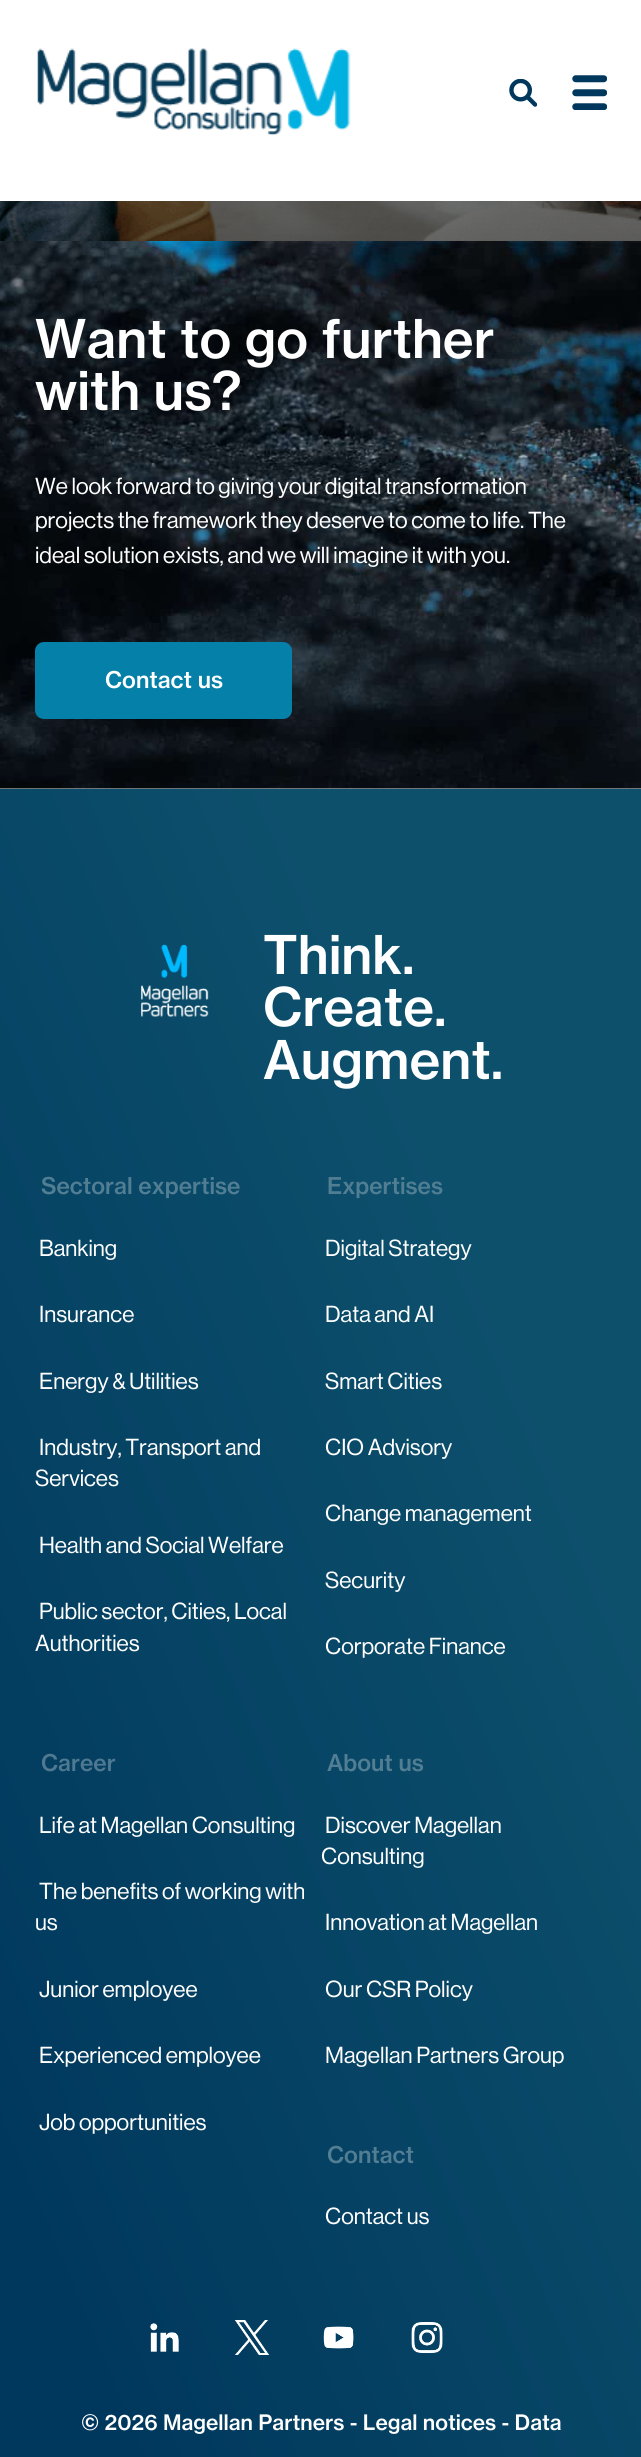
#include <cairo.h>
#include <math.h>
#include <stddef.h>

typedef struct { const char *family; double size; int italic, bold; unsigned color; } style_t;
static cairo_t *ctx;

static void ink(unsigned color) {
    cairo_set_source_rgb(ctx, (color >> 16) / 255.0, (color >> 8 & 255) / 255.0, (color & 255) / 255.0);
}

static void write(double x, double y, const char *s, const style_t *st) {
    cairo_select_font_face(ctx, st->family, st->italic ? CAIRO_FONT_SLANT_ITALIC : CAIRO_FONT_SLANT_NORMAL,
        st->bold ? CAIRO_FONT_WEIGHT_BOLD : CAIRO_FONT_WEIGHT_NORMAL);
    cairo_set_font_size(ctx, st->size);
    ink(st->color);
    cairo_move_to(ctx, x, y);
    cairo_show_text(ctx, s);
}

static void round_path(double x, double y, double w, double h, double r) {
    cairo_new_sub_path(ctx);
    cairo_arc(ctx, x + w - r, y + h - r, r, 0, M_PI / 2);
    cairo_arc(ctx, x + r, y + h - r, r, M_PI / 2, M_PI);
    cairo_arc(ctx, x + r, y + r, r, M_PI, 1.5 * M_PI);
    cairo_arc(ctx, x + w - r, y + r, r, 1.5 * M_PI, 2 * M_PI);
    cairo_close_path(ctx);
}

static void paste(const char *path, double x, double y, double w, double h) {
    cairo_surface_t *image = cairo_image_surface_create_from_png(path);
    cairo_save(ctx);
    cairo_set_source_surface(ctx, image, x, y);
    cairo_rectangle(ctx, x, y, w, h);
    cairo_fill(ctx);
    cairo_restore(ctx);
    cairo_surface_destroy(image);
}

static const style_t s1 = {"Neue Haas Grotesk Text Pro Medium", 52.5, 0, 0, 0xffffff};
static const style_t s2 = {"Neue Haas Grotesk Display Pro", 22.75, 0, 0, 0xffffff};
static const style_t s3 = {"Neue Haas Grotesk Text Pro Medium", 22.75, 0, 0, 0xffffff};
static const style_t s4 = {"Neue Haas Grotesk Text Pro Medium", 22.75, 0, 0, 0x527e94};
static const style_t s5 = {"Neue Haas Grotesk Text Pro Medium", 22.75, 0, 0, 0x4f7891};
static const style_t s6 = {"Neue Haas Grotesk Text Pro Medium", 21, 0, 0, 0xffffff};

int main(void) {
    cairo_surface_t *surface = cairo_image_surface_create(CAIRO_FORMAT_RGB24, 641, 2457);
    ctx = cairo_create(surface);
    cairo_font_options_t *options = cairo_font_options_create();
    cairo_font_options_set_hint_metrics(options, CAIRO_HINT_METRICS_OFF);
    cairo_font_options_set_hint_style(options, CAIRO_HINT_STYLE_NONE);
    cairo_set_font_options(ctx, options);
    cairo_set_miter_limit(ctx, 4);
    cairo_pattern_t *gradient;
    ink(0xffffff);
    cairo_paint(ctx);
    paste("pic1.png", 37, 48, 314, 88);
    paste("pic2.png", 509, 79, 28, 28);
    paste("pic3.png", 572, 75, 35, 35);
    paste("pic4.png", 0, 201, 641, 40);
    paste("pic5.png", 0, 241, 641, 548);
    write(35, 358, "Want to go further", &s1);
    write(35, 410, "with us?", &s1);
    write(35, 494, "We look forward to giving your digital transformation", &s2);
    write(35, 528, "projects the framework they deserve to come to life. The", &s2);
    write(35, 563, "ideal solution exists, and we will imagine it with you.", &s2);
    ink(0x0480a9);
    round_path(35, 642, 257, 77, 9);
    cairo_fill(ctx);
    write(105, 688, "Contact us", &s3);
    gradient = cairo_pattern_create_linear(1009, 1653, -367, 2237);
    cairo_pattern_add_color_stop_rgba(gradient, 0.22, 0.051, 0.314, 0.424, 1);
    cairo_pattern_add_color_stop_rgba(gradient, 0.75, 0, 0.22, 0.365, 1);
    cairo_set_source(ctx, gradient);
    cairo_pattern_destroy(gradient);
    cairo_rectangle(ctx, 0, 789, 641, 1668);
    cairo_fill(ctx);
    paste("pic6.png", 141, 944, 68, 73);
    write(263, 974, "Think.", &s1);
    write(263, 1026, "Create.", &s1);
    write(263, 1079, "Augment.", &s1);
    write(41, 1194, "Sectoral expertise", &s4);
    write(39, 1256, "Banking", &s2);
    write(39, 1322, "Insurance", &s2);
    write(39, 1389, "Energy & Utilities", &s2);
    write(39, 1455, "Industry, Transport and", &s2);
    write(35, 1486, "Services", &s2);
    write(39, 1553, "Health and Social Welfare", &s2);
    write(39, 1619, "Public sector, Cities, Local", &s2);
    write(35, 1651, "Authorities", &s2);
    write(327, 1194, "Expertises", &s4);
    write(325, 1256, "Digital Strategy", &s2);
    write(325, 1322, "Data and AI", &s2);
    write(325, 1389, "Smart Cities", &s2);
    write(325, 1455, "CIO Advisory", &s2);
    write(325, 1521, "Change management", &s2);
    write(325, 1588, "Security", &s2);
    write(325, 1654, "Corporate Finance", &s2);
    write(41, 1771, "Career", &s5);
    write(39, 1833, "Life at Magellan Consulting", &s2);
    write(39, 1899, "The benefits of working with", &s2);
    write(35, 1930, "us", &s2);
    write(39, 1997, "Junior employee", &s2);
    write(39, 2063, "Experienced employee", &s2);
    write(39, 2130, "Job opportunities", &s2);
    write(327, 1771, "About us", &s4);
    write(325, 1833, "Discover Magellan", &s2);
    write(321, 1864, "Consulting", &s2);
    write(325, 1930, "Innovation at Magellan", &s2);
    write(325, 1997, "Our CSR Policy", &s2);
    write(325, 2063, "Magellan Partners Group", &s2);
    write(327, 2163, "Contact", &s4);
    write(325, 2224, "Contact us", &s2);
    paste("pic7.png", 150, 2323, 29, 29);
    paste("pic8.png", 234, 2320, 36, 35);
    paste("pic9.png", 323, 2326, 31, 23);
    paste("pic10.png", 411, 2322, 32, 32);
    write(81, 2430, "© 2026 Magellan Partners - Legal notices - Data", &s6);
    cairo_surface_write_to_png(surface, "screenshot.png");
    cairo_font_options_destroy(options);
    cairo_destroy(ctx);
    cairo_surface_destroy(surface);
    return 0;
}
